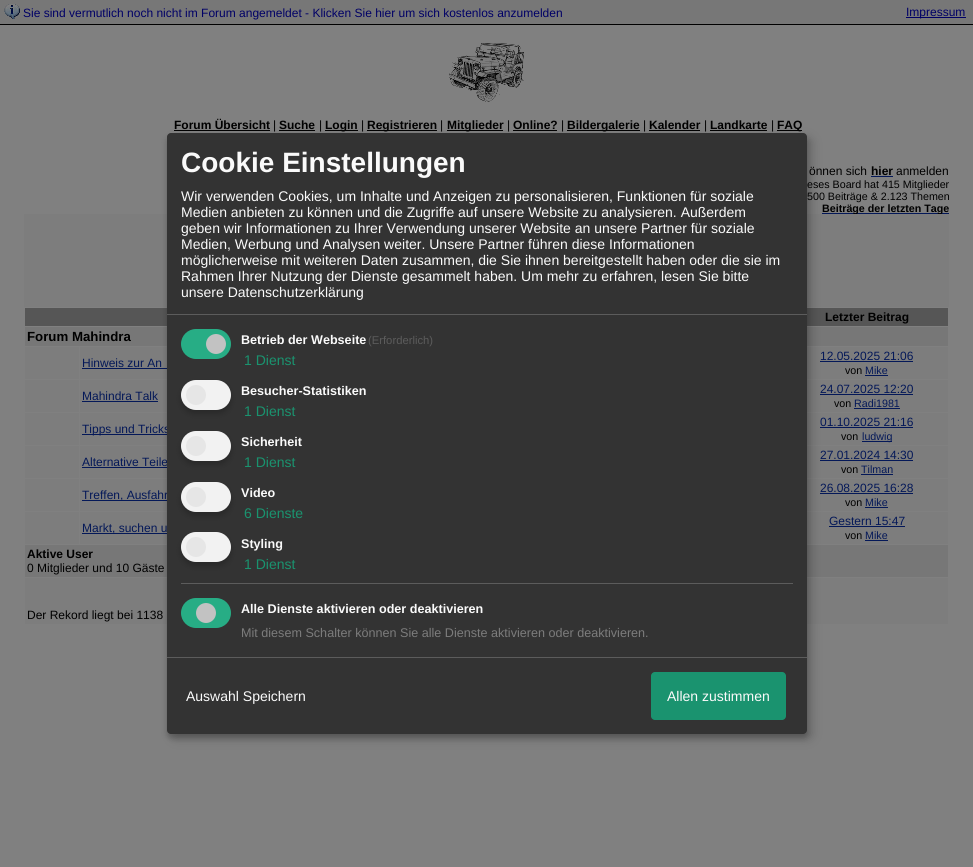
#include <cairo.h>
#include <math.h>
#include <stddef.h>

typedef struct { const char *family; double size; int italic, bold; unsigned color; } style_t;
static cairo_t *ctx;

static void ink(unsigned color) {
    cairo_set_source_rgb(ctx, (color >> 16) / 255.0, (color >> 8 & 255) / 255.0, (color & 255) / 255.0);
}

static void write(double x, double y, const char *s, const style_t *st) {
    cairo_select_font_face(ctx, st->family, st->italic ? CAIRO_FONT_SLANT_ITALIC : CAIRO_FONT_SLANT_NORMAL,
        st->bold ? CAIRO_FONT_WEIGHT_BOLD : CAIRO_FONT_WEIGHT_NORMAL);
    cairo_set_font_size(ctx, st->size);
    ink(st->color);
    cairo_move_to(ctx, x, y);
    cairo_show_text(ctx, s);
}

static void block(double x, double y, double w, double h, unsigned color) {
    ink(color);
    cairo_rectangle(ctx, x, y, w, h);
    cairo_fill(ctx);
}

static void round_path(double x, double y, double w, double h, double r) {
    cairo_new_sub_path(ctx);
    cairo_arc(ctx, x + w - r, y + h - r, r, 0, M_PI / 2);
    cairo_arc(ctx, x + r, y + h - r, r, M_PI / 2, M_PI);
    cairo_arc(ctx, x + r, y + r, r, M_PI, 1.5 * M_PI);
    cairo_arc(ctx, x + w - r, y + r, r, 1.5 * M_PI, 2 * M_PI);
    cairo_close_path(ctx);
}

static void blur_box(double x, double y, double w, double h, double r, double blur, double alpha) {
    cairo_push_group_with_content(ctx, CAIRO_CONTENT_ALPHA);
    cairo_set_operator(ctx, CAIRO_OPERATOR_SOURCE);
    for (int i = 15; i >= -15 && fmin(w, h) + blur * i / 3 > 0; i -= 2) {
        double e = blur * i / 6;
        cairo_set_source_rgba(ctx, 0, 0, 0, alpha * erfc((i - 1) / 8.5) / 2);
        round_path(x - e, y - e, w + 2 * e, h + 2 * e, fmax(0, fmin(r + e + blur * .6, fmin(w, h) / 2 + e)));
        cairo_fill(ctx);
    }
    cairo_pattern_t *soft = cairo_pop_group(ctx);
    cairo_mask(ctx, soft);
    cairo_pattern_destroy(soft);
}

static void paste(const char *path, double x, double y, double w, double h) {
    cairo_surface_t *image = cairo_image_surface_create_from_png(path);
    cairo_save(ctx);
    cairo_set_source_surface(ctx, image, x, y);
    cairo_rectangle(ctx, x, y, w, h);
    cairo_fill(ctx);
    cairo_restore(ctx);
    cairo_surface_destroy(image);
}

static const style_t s1 = {"Liberation Sans", 12, 0, 0, 0x000066};
static const style_t s2 = {"Liberation Sans", 12, 0, 1, 0x000000};
static const style_t s3 = {"Liberation Sans", 12, 0, 0, 0x000000};
static const style_t s4 = {"Liberation Sans", 10.7, 0, 0, 0x000000};
static const style_t s5 = {"Liberation Sans", 10.7, 0, 1, 0x000000};
static const style_t s6 = {"Liberation Sans", 13.25, 0, 1, 0x000000};
static const style_t s7 = {"Liberation Sans", 12, 0, 0, 0x041858};
static const style_t s8 = {"Liberation Sans", 10.7, 0, 0, 0x041858};
static const style_t s9 = {"Liberation Sans", 28, 0, 1, 0xfafafa};
static const style_t s10 = {"Liberation Sans", 14, 0, 0, 0xfafafa};
static const style_t s11 = {"Liberation Sans", 12.6, 0, 1, 0xfafafa};
static const style_t s12 = {"Liberation Sans", 11.25, 0, 0, 0x5c5c5c};
static const style_t s13 = {"Liberation Sans", 14, 0, 0, 0x1a936f};
static const style_t s14 = {"Liberation Sans", 12.6, 0, 0, 0x7c7c7c};

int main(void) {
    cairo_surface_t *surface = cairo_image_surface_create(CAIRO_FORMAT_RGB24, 973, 867);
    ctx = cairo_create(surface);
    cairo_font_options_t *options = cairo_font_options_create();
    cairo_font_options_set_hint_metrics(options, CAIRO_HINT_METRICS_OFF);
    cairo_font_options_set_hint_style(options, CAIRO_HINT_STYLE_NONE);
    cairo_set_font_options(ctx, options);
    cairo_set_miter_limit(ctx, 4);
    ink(0x808080);
    cairo_paint(ctx);
    block(0, 0, 973, 24, 0x777777);
    block(0, 24, 973, 1, 0x000000);
    paste("pic1.png", 4, 4, 16, 15);
    write(23, 17, "Sie sind vermutlich noch nicht im Forum angemeldet - Klicken Sie hier um sich kostenlos anzumelden", &s1);
    block(906, 17, 60, 1, 0x000066);
    write(906, 16, "Impressum", &s1);
    paste("pic2.png", 449, 43, 75, 59);
    write(174, 129, "Forum Übersicht", &s2);
    block(174, 130, 96, 1, 0x000000);
    write(273, 129, "|", &s3);
    write(279, 129, "Suche", &s2);
    block(279, 130, 36, 1, 0x000000);
    write(319, 129, "|", &s3);
    block(325, 130, 33, 1, 0x000000);
    write(325, 129, "Login", &s2);
    write(361, 129, "|", &s3);
    block(367, 130, 70, 1, 0x000000);
    write(367, 129, "Registrieren", &s2);
    write(440, 129, "|", &s3);
    block(447, 130, 56, 1, 0x000000);
    write(447, 129, "Mitglieder", &s2);
    write(507, 129, "|", &s3);
    write(513, 129, "Online?", &s2);
    block(513, 130, 44, 1, 0x000000);
    write(561, 129, "|", &s3);
    block(567, 130, 73, 1, 0x000000);
    write(567, 129, "Bildergalerie", &s2);
    write(643, 129, "|", &s3);
    write(649, 129, "Kalender", &s2);
    block(649, 130, 51, 1, 0x000000);
    write(704, 129, "|", &s3);
    write(710, 129, "Landkarte", &s2);
    block(710, 130, 57, 1, 0x000000);
    write(771, 129, "|", &s3);
    block(777, 130, 25, 1, 0x000000);
    write(777, 129, "FAQ", &s2);
    write(809, 175, "önnen sich", &s3);
    write(871, 175, "hier", &s2);
    block(871, 176, 22, 1, 0x041858);
    write(896, 175, "anmelden", &s3);
    write(807, 188, "eses Board hat 415 Mitglieder", &s4);
    write(807, 200, "500 Beiträge & 2.123 Themen", &s4);
    block(822, 213, 127, 1, 0x041858);
    write(822, 212, "Beiträge der letzten Tage", &s5);
    block(24, 214, 925, 93, 0x7d7d7d);
    block(25, 308, 923, 18, 0x565656);
    write(825, 321, "Letzter Beitrag", &s2);
    block(25, 327, 923, 19, 0x777777);
    write(27, 341, "Forum Mahindra", &s6);
    block(25, 347, 54, 32, 0x7d7d7d);
    block(80, 347, 87, 32, 0x7d7d7d);
    write(82, 367, "Hinweis zur An", &s7);
    block(82, 368, 85, 1, 0x041858);
    block(807, 347, 141, 32, 0x7d7d7d);
    write(820, 360, "12.05.2025 21:06", &s7);
    block(820, 361, 93, 1, 0x041858);
    write(845, 374, "von", &s4);
    write(865, 374, "Mike", &s8);
    block(865, 375, 23, 1, 0x041858);
    block(25, 380, 54, 32, 0x7d7d7d);
    block(80, 380, 87, 32, 0x7d7d7d);
    write(82, 400, "Mahindra Talk", &s7);
    block(82, 401, 76, 1, 0x041858);
    block(807, 380, 141, 32, 0x7d7d7d);
    write(820, 393, "24.07.2025 12:20", &s7);
    block(820, 394, 93, 1, 0x041858);
    write(834, 407, "von", &s4);
    write(854, 407, "Radi1981", &s8);
    block(854, 408, 46, 1, 0x041858);
    block(25, 413, 54, 32, 0x7d7d7d);
    block(80, 413, 87, 32, 0x7d7d7d);
    block(82, 434, 88, 1, 0x041858);
    write(82, 433, "Tipps und Tricks", &s7);
    block(807, 413, 141, 32, 0x7d7d7d);
    write(820, 426, "01.10.2025 21:16", &s7);
    block(820, 427, 93, 1, 0x041858);
    write(841, 440, "von", &s4);
    block(862, 441, 30, 1, 0x041858);
    write(862, 440, "ludwig", &s8);
    block(25, 446, 54, 32, 0x7d7d7d);
    block(80, 446, 87, 32, 0x7d7d7d);
    write(82, 466, "Alternative Teile", &s7);
    block(82, 467, 86, 1, 0x041858);
    block(807, 446, 141, 32, 0x7d7d7d);
    write(820, 459, "27.01.2024 14:30", &s7);
    block(820, 460, 93, 1, 0x041858);
    write(841, 473, "von", &s4);
    write(861, 473, "Tilman", &s8);
    block(861, 474, 32, 1, 0x041858);
    block(25, 479, 54, 32, 0x7d7d7d);
    block(80, 479, 87, 32, 0x7d7d7d);
    block(82, 500, 85, 1, 0x041858);
    write(82, 499, "Treffen, Ausfahr", &s7);
    block(807, 479, 141, 32, 0x7d7d7d);
    write(820, 492, "26.08.2025 16:28", &s7);
    block(820, 493, 93, 1, 0x041858);
    write(845, 506, "von", &s4);
    write(865, 506, "Mike", &s8);
    block(865, 507, 23, 1, 0x041858);
    block(25, 512, 54, 32, 0x7d7d7d);
    block(80, 512, 87, 32, 0x7d7d7d);
    block(82, 533, 85, 1, 0x041858);
    write(82, 532, "Markt, suchen u", &s7);
    block(807, 512, 141, 32, 0x7d7d7d);
    write(829, 525, "Gestern 15:47", &s7);
    block(829, 526, 76, 1, 0x041858);
    write(845, 539, "von", &s4);
    write(865, 539, "Mike", &s8);
    block(865, 540, 23, 1, 0x041858);
    block(25, 545, 923, 32, 0x777777);
    write(27, 558, "Aktive User", &s2);
    write(27, 572, "0 Mitglieder und 10 Gäste", &s3);
    block(25, 578, 923, 46, 0x7d7d7d);
    write(27, 619, "Der Rekord liegt bei 1138", &s3);
    ink(0x000000);
    blur_box(172, 138, 640, 601, 4, 5, 0.19);
    blur_box(167, 137, 640, 601, 4, 3, 0.2);
    ink(0x333333);
    round_path(167, 133, 640, 601, 4);
    cairo_fill(ctx);
    block(167, 314, 640, 1, 0x5c5c5c);
    write(181, 172, "Cookie Einstellungen", &s9);
    write(181, 201, "Wir verwenden Cookies, um Inhalte und Anzeigen zu personalisieren, Funktionen für soziale", &s10);
    write(181, 217, "Medien anbieten zu können und die Zugriffe auf unsere Website zu analysieren. Außerdem", &s10);
    write(181, 233, "geben wir Informationen zu Ihrer Verwendung unserer Website an unsere Partner für soziale", &s10);
    write(181, 249, "Medien, Werbung und Analysen weiter. Unsere Partner führen diese Informationen", &s10);
    write(181, 265, "möglicherweise mit weiteren Daten zusammen, die Sie ihnen bereitgestellt haben oder die sie im", &s10);
    write(181, 281, "Rahmen Ihrer Nutzung der Dienste gesammelt haben. Um mehr zu erfahren, lesen Sie bitte", &s10);
    write(181, 297, "unsere Datenschutzerklärung", &s10);
    ink(0x27ad85);
    round_path(181, 329, 50, 30, 15);
    cairo_fill(ctx);
    ink(0xc2c2c2);
    cairo_arc(ctx, 216, 344, 10, 0, 2 * M_PI);
    cairo_fill(ctx);
    write(241, 344, "Betrieb der Webseite", &s11);
    write(368, 344, "(Erforderlich)", &s12);
    write(244, 365, "1 Dienst", &s13);
    ink(0x000000);
    blur_box(181, 384, 50, 30, 15, 3, 0.2);
    ink(0xf2f2f2);
    round_path(181, 380, 50, 30, 15);
    cairo_fill(ctx);
    ink(0xe6e6e6);
    cairo_arc(ctx, 196, 395, 10, 0, 2 * M_PI);
    cairo_fill(ctx);
    write(241, 395, "Besucher-Statistiken", &s11);
    write(244, 416, "1 Dienst", &s13);
    ink(0x000000);
    blur_box(181, 435, 50, 30, 15, 3, 0.2);
    ink(0xf2f2f2);
    round_path(181, 431, 50, 30, 15);
    cairo_fill(ctx);
    ink(0xe6e6e6);
    cairo_arc(ctx, 196, 446, 10, 0, 2 * M_PI);
    cairo_fill(ctx);
    write(241, 446, "Sicherheit", &s11);
    write(244, 467, "1 Dienst", &s13);
    ink(0x000000);
    blur_box(181, 486, 50, 30, 15, 3, 0.2);
    ink(0xf2f2f2);
    round_path(181, 482, 50, 30, 15);
    cairo_fill(ctx);
    ink(0xe6e6e6);
    cairo_arc(ctx, 196, 497, 10, 0, 2 * M_PI);
    cairo_fill(ctx);
    write(241, 497, "Video", &s11);
    write(244, 518, "6 Dienste", &s13);
    ink(0x000000);
    blur_box(181, 536, 50, 30, 15, 3, 0.2);
    ink(0xf2f2f2);
    round_path(181, 532, 50, 30, 15);
    cairo_fill(ctx);
    ink(0xe6e6e6);
    cairo_arc(ctx, 196, 547, 10, 0, 2 * M_PI);
    cairo_fill(ctx);
    write(241, 548, "Styling", &s11);
    write(244, 569, "1 Dienst", &s13);
    block(181, 583, 612, 1, 0x5c5c5c);
    ink(0x27ad85);
    round_path(181, 598, 50, 30, 15);
    cairo_fill(ctx);
    ink(0xc2c2c2);
    cairo_arc(ctx, 206, 613, 10, 0, 2 * M_PI);
    cairo_fill(ctx);
    write(241, 613, "Alle Dienste aktivieren oder deaktivieren", &s11);
    write(241, 637, "Mit diesem Schalter können Sie alle Dienste aktivieren oder deaktivieren.", &s14);
    block(167, 657, 640, 1, 0x5c5c5c);
    write(186, 701, "Auswahl Speichern", &s10);
    ink(0x1a936f);
    round_path(651, 672, 135, 48, 4);
    cairo_fill(ctx);
    write(667, 701, "Allen zustimmen", &s10);
    cairo_surface_write_to_png(surface, "screenshot.png");
    cairo_font_options_destroy(options);
    cairo_destroy(ctx);
    cairo_surface_destroy(surface);
    return 0;
}
